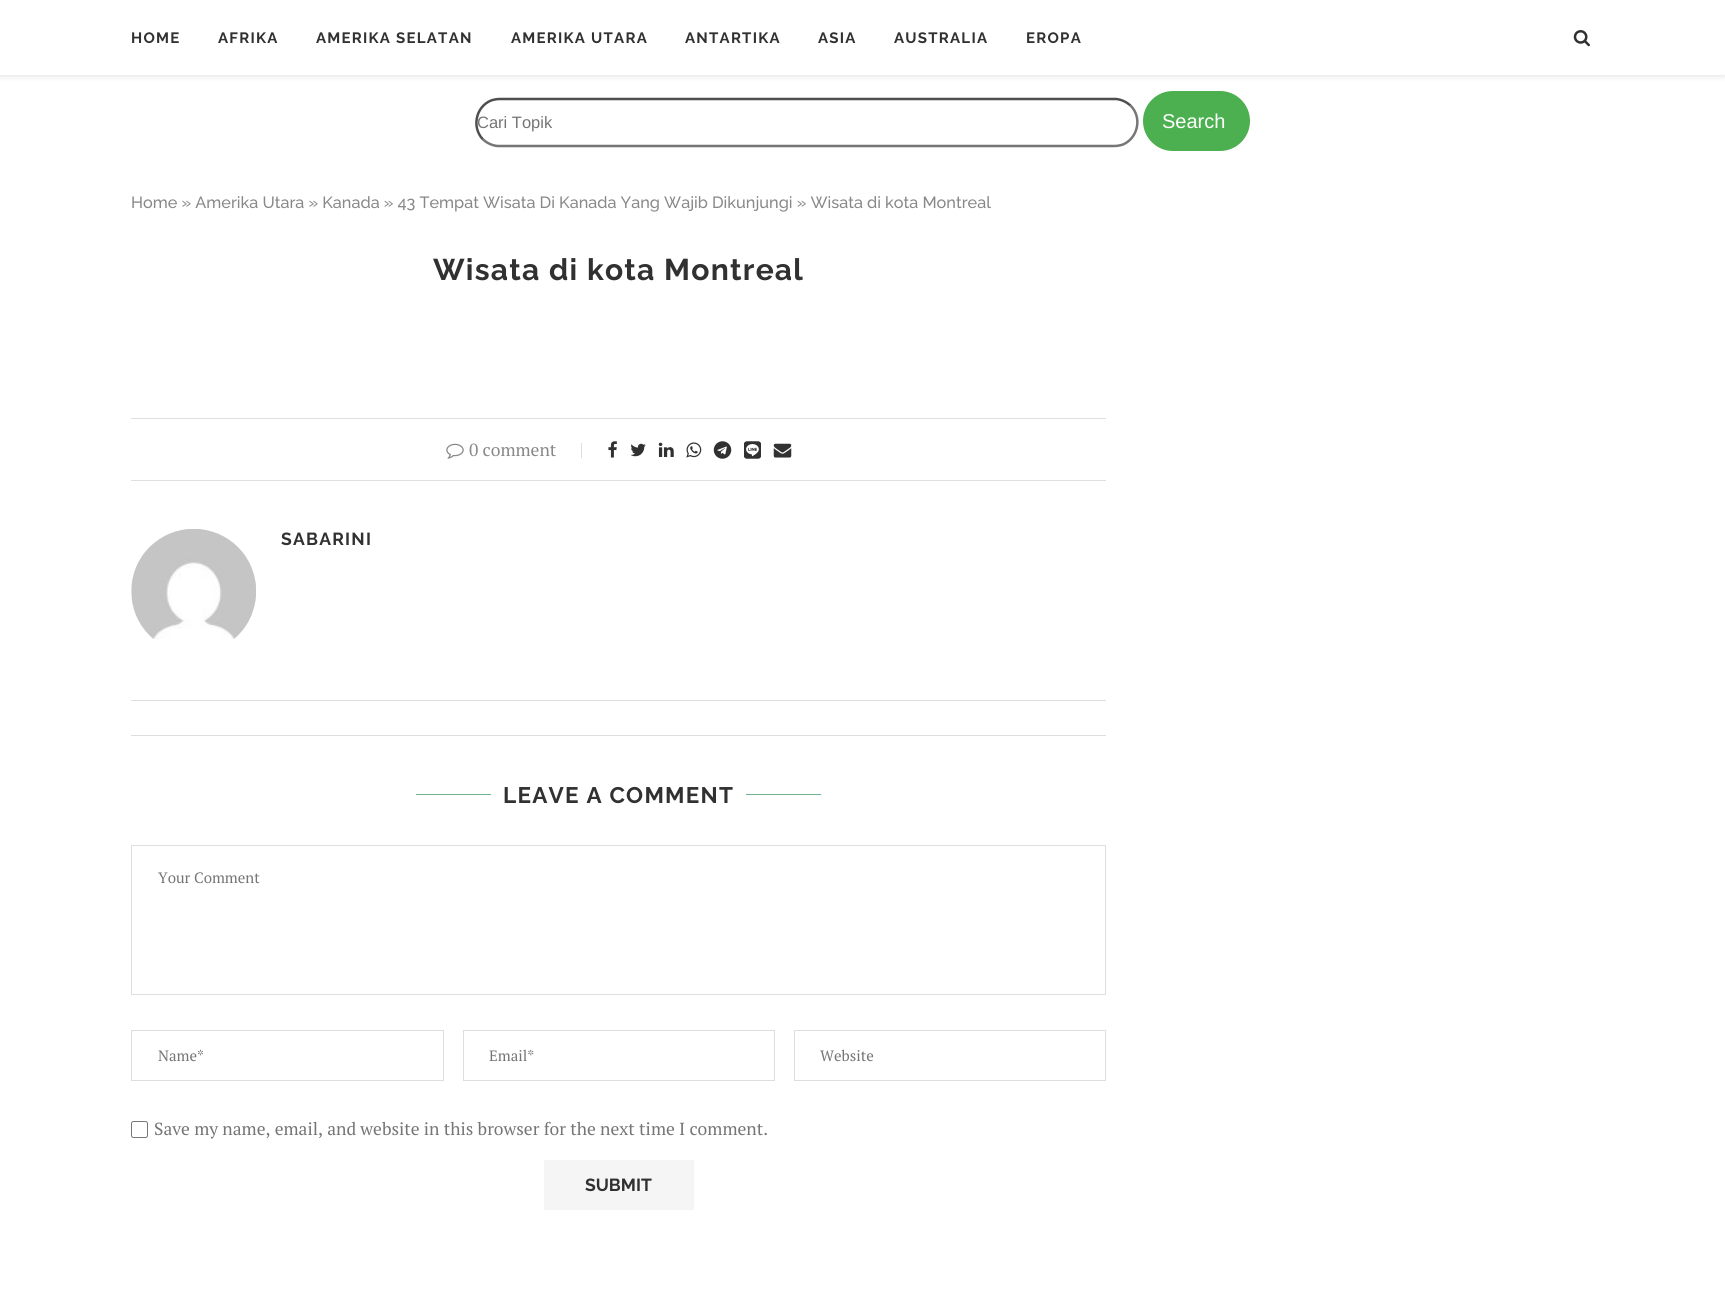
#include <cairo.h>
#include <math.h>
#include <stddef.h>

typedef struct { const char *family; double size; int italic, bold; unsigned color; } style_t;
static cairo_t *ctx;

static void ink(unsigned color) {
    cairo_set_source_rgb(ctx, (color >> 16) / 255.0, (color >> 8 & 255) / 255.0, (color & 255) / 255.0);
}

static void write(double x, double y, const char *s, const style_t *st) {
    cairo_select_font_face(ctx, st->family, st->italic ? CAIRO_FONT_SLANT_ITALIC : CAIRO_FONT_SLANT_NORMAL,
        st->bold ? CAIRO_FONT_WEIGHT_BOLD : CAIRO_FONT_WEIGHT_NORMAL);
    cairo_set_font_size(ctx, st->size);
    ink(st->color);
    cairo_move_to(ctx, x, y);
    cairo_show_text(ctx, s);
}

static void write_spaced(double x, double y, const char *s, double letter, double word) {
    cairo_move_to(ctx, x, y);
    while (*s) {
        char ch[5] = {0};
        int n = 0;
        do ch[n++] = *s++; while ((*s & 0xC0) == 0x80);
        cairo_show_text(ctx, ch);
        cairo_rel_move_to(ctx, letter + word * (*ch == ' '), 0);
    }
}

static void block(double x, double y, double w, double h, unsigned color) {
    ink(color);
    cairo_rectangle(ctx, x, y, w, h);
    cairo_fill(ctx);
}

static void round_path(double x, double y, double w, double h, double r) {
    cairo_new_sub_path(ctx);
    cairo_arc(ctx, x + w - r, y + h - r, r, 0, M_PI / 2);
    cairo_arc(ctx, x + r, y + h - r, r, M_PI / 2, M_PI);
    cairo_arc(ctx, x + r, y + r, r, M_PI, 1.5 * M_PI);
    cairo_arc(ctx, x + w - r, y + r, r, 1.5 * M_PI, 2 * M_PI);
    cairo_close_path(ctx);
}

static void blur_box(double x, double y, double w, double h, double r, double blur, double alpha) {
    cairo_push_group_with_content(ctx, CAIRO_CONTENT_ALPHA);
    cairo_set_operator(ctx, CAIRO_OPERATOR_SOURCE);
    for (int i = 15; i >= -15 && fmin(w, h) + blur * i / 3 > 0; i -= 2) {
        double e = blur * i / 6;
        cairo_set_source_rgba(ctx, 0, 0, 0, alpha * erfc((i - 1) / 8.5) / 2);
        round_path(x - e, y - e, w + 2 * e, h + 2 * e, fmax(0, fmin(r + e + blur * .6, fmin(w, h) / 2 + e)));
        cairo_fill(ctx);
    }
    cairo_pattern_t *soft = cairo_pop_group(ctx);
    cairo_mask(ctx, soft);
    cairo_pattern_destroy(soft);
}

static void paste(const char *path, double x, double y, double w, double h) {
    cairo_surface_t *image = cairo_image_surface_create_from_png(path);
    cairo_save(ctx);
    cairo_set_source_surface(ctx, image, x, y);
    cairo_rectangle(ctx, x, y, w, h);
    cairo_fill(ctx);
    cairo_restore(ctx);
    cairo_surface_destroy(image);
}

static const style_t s1 = {"Liberation Sans", 16.5, 0, 0, 0x757575};
static const style_t s2 = {"Liberation Sans", 20, 0, 0, 0xffffff};
static const style_t s3 = {"Raleway Medium", 16.25, 0, 0, 0x888888};
static const style_t s4 = {"PT Serif", 17.5, 0, 0, 0x888888};
static const style_t s5 = {"PT Serif", 15, 0, 0, 0x757575};
static const style_t s6 = {"PT Serif", 17.5, 0, 0, 0x757575};
static const style_t s7 = {"Raleway", 17.5, 0, 1, 0x313131};

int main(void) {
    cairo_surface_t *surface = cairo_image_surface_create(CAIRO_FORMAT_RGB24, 1725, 1297);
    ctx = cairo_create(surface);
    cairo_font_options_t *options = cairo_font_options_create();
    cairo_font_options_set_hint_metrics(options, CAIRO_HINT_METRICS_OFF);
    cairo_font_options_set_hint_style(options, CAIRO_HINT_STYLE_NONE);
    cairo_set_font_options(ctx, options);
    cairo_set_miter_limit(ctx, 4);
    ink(0xffffff);
    cairo_paint(ctx);
    ink(0xbebebe);
    blur_box(0, 1, 1725, 75, 0, 3, 0.46);
    block(0, 0, 1725, 75, 0xffffff);
    cairo_select_font_face(ctx, "Raleway", CAIRO_FONT_SLANT_NORMAL, CAIRO_FONT_WEIGHT_BOLD);
    cairo_set_font_size(ctx, 15);
    ink(0x313131);
    write_spaced(131, 43, "HOME", 1.25, 0);
    write_spaced(218, 43, "AFRIKA", 1.25, 0);
    write_spaced(316, 43, "AMERIKA SELATAN", 1.25, 0);
    write_spaced(511, 43, "AMERIKA UTARA", 1.25, 0);
    write_spaced(685, 43, "ANTARTIKA", 1.25, 0);
    write_spaced(818, 43, "ASIA", 1.25, 0);
    write_spaced(894, 43, "AUSTRALIA", 1.25, 0);
    write_spaced(1026, 43, "EROPA", 1.25, 0);
    paste("pic1.png", 1573, 30, 17, 17);
    cairo_new_path(ctx);
    cairo_move_to(ctx, 1130.5, 105.5);
    cairo_curve_to(ctx, 1142.5, 117.5, 1138, 138, 1123, 144.5);
    cairo_curve_to(ctx, 1120, 145.5, 1117, 146, 1114, 146);
    cairo_line_to(ctx, 497.5, 146);
    cairo_curve_to(ctx, 492, 145.5, 487, 143, 483, 139.5);
    ink(0x767676);
    cairo_set_line_width(ctx, 2.5);
    cairo_stroke(ctx);
    cairo_new_path(ctx);
    cairo_move_to(ctx, 483, 139.5);
    cairo_curve_to(ctx, 471.5, 127.5, 475.5, 107, 491, 100.5);
    cairo_curve_to(ctx, 494, 99.5, 497, 99, 500, 99);
    cairo_line_to(ctx, 1116, 99);
    cairo_curve_to(ctx, 1121.5, 99.5, 1126.5, 102, 1130.5, 105.5);
    ink(0x4f4f4f);
    cairo_stroke(ctx);
    write(477, 128, "Cari Topik", &s1);
    ink(0x4caf50);
    round_path(1143, 91, 107, 60, 30);
    cairo_fill(ctx);
    write(1162, 128, "Search", &s2);
    write(131, 208, "Home » Amerika Utara » Kanada » 43 Tempat Wisata Di Kanada Yang Wajib Dikunjungi » Wisata di kota Montreal", &s3);
    cairo_select_font_face(ctx, "Raleway", CAIRO_FONT_SLANT_NORMAL, CAIRO_FONT_WEIGHT_BOLD);
    cairo_set_font_size(ctx, 30);
    ink(0x313131);
    write_spaced(433, 280, "Wisata di kota Montreal", 1.25, 0);
    block(131, 418, 975, 1, 0xdedede);
    paste("pic2.png", 446, 443, 18, 16);
    write(469, 456, "0 comment", &s4);
    block(581, 443, 1, 15, 0xdedede);
    paste("pic3.png", 608, 441, 9, 17);
    paste("pic4.png", 630, 443, 16, 14);
    paste("pic5.png", 658, 442, 16, 15);
    paste("pic6.png", 686, 442, 16, 16);
    paste("pic7.png", 713, 441, 19, 18);
    paste("pic8.png", 744, 441, 17, 18);
    paste("pic9.png", 773, 443, 19, 15);
    block(131, 480, 975, 1, 0xe0e0e0);
    paste("pic10.png", 131, 529, 126, 110);
    cairo_select_font_face(ctx, "Raleway", CAIRO_FONT_SLANT_NORMAL, CAIRO_FONT_WEIGHT_BOLD);
    ink(0x313131);
    write_spaced(281, 545, "SABARINI", 1.25, 0);
    block(131, 700, 975, 1, 0xdedede);
    block(131, 735, 975, 1, 0xdedede);
    block(416, 794, 75, 1, 0x6eb48c);
    cairo_set_font_size(ctx, 22.5);
    ink(0x313131);
    write_spaced(503, 803, "LEAVE A COMMENT", 1.25, 0);
    block(746, 794, 75, 1, 0x6eb48c);
    cairo_rectangle(ctx, 131.5, 845.5, 974, 149);
    ink(0xdedede);
    cairo_set_line_width(ctx, 1);
    cairo_stroke(ctx);
    write(158, 883, "Your Comment", &s5);
    cairo_rectangle(ctx, 131.5, 1030.5, 312, 50);
    ink(0xdedede);
    cairo_stroke(ctx);
    write(158, 1061, "Name*", &s5);
    cairo_rectangle(ctx, 463.5, 1030.5, 311, 50);
    ink(0xdedede);
    cairo_stroke(ctx);
    write(489, 1061, "Email*", &s5);
    cairo_rectangle(ctx, 794.5, 1030.5, 311, 50);
    ink(0xdedede);
    cairo_stroke(ctx);
    write(820, 1061, "Website", &s5);
    round_path(131.5, 1121.5, 16, 16, 2);
    ink(0x767676);
    cairo_stroke(ctx);
    write(154, 1135, "Save my name, email, and website in this browser for the next time I comment.", &s6);
    block(544, 1160, 150, 50, 0xf5f5f5);
    write(585, 1191, "SUBMIT", &s7);
    cairo_surface_write_to_png(surface, "screenshot.png");
    cairo_font_options_destroy(options);
    cairo_destroy(ctx);
    cairo_surface_destroy(surface);
    return 0;
}
